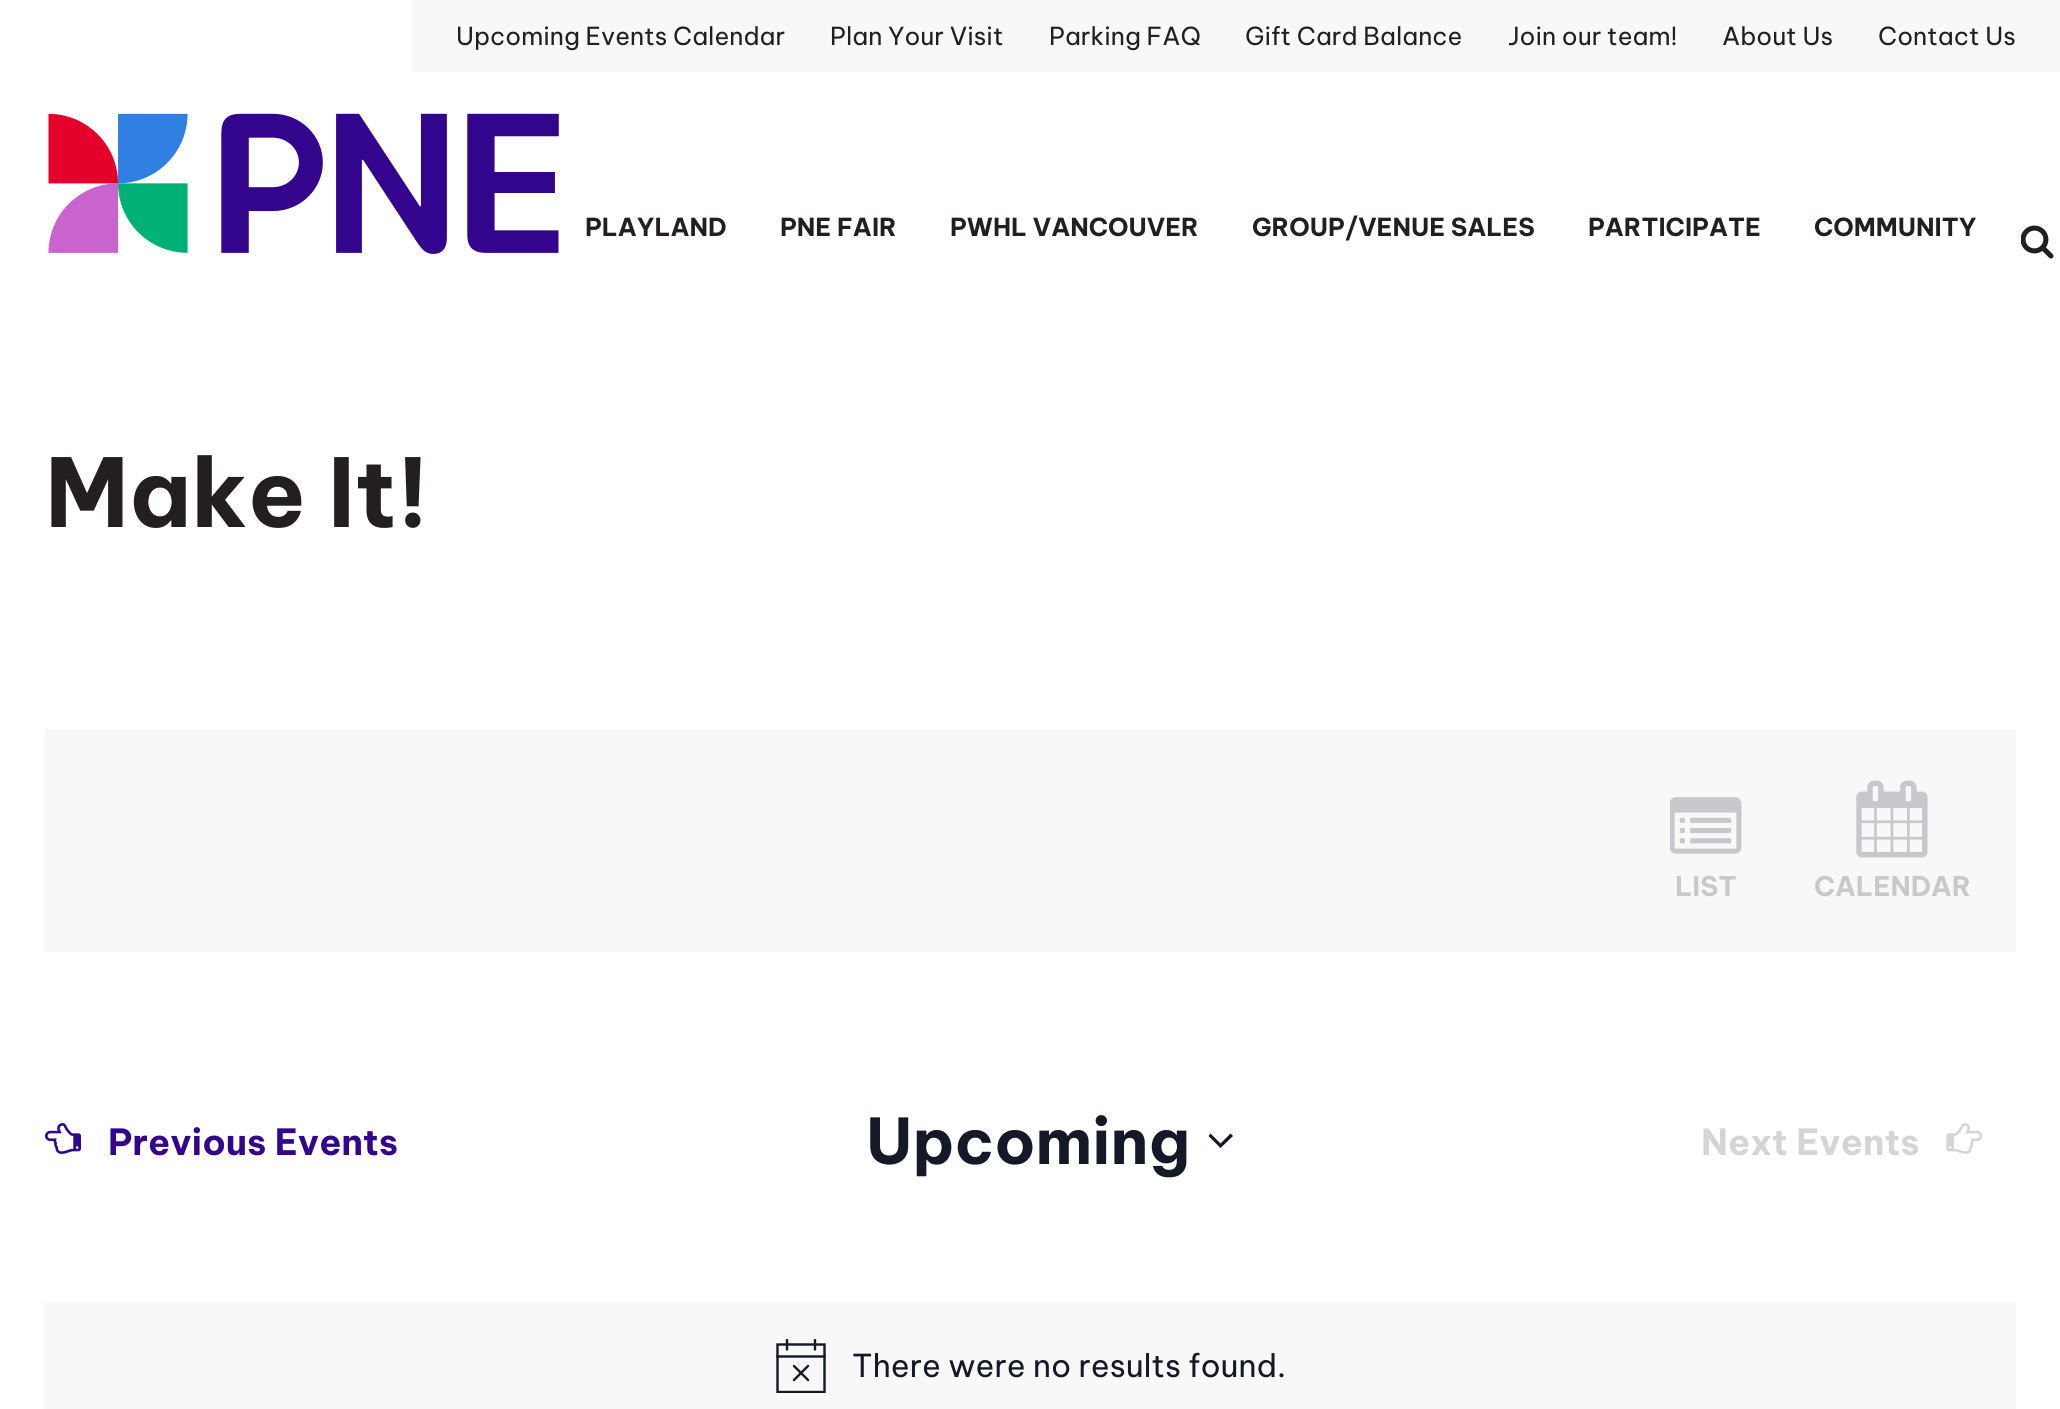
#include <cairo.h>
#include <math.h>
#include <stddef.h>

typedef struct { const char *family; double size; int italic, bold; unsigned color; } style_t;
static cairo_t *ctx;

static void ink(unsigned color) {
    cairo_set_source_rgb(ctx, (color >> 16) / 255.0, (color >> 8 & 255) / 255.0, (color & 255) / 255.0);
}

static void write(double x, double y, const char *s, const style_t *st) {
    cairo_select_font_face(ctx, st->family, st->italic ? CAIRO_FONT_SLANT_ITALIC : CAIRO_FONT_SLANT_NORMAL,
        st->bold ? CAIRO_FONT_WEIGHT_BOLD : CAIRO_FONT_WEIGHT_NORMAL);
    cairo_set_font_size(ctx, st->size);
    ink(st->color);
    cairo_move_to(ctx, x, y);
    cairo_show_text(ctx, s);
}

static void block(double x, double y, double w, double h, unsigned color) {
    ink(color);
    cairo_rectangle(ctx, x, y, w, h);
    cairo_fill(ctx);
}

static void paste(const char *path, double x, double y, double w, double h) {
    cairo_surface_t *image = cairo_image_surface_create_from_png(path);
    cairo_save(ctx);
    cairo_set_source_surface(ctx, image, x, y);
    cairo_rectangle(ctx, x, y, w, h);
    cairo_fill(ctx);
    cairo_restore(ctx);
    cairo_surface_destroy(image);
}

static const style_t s1 = {"Be Vietnam Pro", 24.75, 0, 0, 0x231f20};
static const style_t s2 = {"Be Vietnam Pro", 24.75, 0, 1, 0x231f20};
static const style_t s3 = {"Be Vietnam Pro", 94.5, 0, 1, 0x231f20};
static const style_t s4 = {"Be Vietnam Pro", 27, 0, 1, 0xc8c9cc};
static const style_t s5 = {"Be Vietnam Pro", 36, 0, 1, 0x33058d};
static const style_t s6 = {"Be Vietnam Pro", 63, 0, 1, 0x141827};
static const style_t s7 = {"Be Vietnam Pro", 36, 0, 1, 0xd5d5d5};
static const style_t s8 = {"Be Vietnam Pro", 31.5, 0, 0, 0x141827};

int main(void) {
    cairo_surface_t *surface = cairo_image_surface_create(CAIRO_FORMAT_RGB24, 2060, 1409);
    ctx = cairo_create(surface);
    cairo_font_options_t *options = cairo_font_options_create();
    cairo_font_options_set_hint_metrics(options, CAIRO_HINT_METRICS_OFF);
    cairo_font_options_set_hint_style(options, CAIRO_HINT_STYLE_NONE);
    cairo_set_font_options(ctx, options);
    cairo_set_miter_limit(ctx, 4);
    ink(0xffffff);
    cairo_paint(ctx);
    block(412, 0, 1648, 72, 0xf8f8f8);
    write(456, 45, "Upcoming Events Calendar", &s1);
    write(830, 45, "Plan Your Visit", &s1);
    write(1049, 45, "Parking FAQ", &s1);
    write(1245, 45, "Gift Card Balance", &s1);
    write(1508, 45, "Join our team!", &s1);
    write(1722, 45, "About Us", &s1);
    write(1878, 45, "Contact Us", &s1);
    paste("pic1.png", 48, 113, 511, 141);
    write(585, 236, "PLAYLAND", &s2);
    write(780, 236, "PNE FAIR", &s2);
    write(950, 236, "PWHL VANCOUVER", &s2);
    write(1252, 236, "GROUP/VENUE SALES", &s2);
    write(1588, 236, "PARTICIPATE", &s2);
    write(1814, 236, "COMMUNITY", &s2);
    paste("pic2.png", 2021, 225, 33, 34);
    write(45, 527, "Make It!", &s3);
    block(45, 729, 1971, 223, 0xf8f8f8);
    paste("pic3.png", 1670, 797, 72, 57);
    write(1675, 896, "LIST", &s4);
    paste("pic4.png", 1856, 780, 72, 78);
    write(1814, 896, "CALENDAR", &s4);
    paste("pic5.png", 45, 1123, 36, 31);
    write(108, 1155, "Previous Events", &s5);
    write(866, 1164, "Upcoming", &s6);
    cairo_set_fill_rule(ctx, CAIRO_FILL_RULE_EVEN_ODD);
    cairo_new_path(ctx);
    cairo_move_to(ctx, 1210.5, 1133.5);
    cairo_line_to(ctx, 1220.5, 1143.5);
    cairo_line_to(ctx, 1230.5, 1133.5);
    cairo_line_to(ctx, 1233, 1136);
    cairo_line_to(ctx, 1220.5, 1148);
    cairo_line_to(ctx, 1208.5, 1136);
    cairo_close_path(ctx);
    cairo_fill(ctx);
    write(1701, 1155, "Next Events", &s7);
    paste("pic6.png", 1946, 1123, 36, 31);
    block(45, 1303, 1971, 106, 0xf8f8f8);
    cairo_save(ctx);
    cairo_set_fill_rule(ctx, CAIRO_FILL_RULE_WINDING);
    cairo_rectangle(ctx, 776, 1339, 50, 54);
    cairo_clip(ctx);
    cairo_new_path(ctx);
    cairo_move_to(ctx, 777.5, 1344.5);
    cairo_line_to(ctx, 824.5, 1344.5);
    cairo_line_to(ctx, 824.5, 1392);
    cairo_line_to(ctx, 777.5, 1392);
    cairo_close_path(ctx);
    ink(0x141827);
    cairo_set_line_width(ctx, 2.4);
    cairo_stroke(ctx);
    cairo_restore(ctx);
    cairo_new_path(ctx);
    cairo_move_to(ctx, 794, 1366);
    cairo_line_to(ctx, 808, 1380);
    cairo_move_to(ctx, 808, 1366);
    cairo_line_to(ctx, 794, 1380);
    ink(0x141827);
    cairo_set_line_width(ctx, 2.4);
    cairo_set_line_cap(ctx, CAIRO_LINE_CAP_ROUND);
    cairo_stroke(ctx);
    cairo_save(ctx);
    cairo_set_fill_rule(ctx, CAIRO_FILL_RULE_WINDING);
    cairo_rectangle(ctx, 776, 1339, 50, 54);
    cairo_clip(ctx);
    cairo_new_path(ctx);
    cairo_move_to(ctx, 787, 1340);
    cairo_line_to(ctx, 787, 1349.5);
    cairo_move_to(ctx, 815, 1340);
    cairo_line_to(ctx, 815, 1349.5);
    cairo_stroke(ctx);
    cairo_restore(ctx);
    cairo_new_path(ctx);
    cairo_move_to(ctx, 777.5, 1356.5);
    cairo_line_to(ctx, 824.5, 1356.5);
    cairo_set_line_cap(ctx, CAIRO_LINE_CAP_SQUARE);
    cairo_stroke(ctx);
    write(852, 1377, "There were no results found.", &s8);
    cairo_surface_write_to_png(surface, "screenshot.png");
    cairo_font_options_destroy(options);
    cairo_destroy(ctx);
    cairo_surface_destroy(surface);
    return 0;
}
